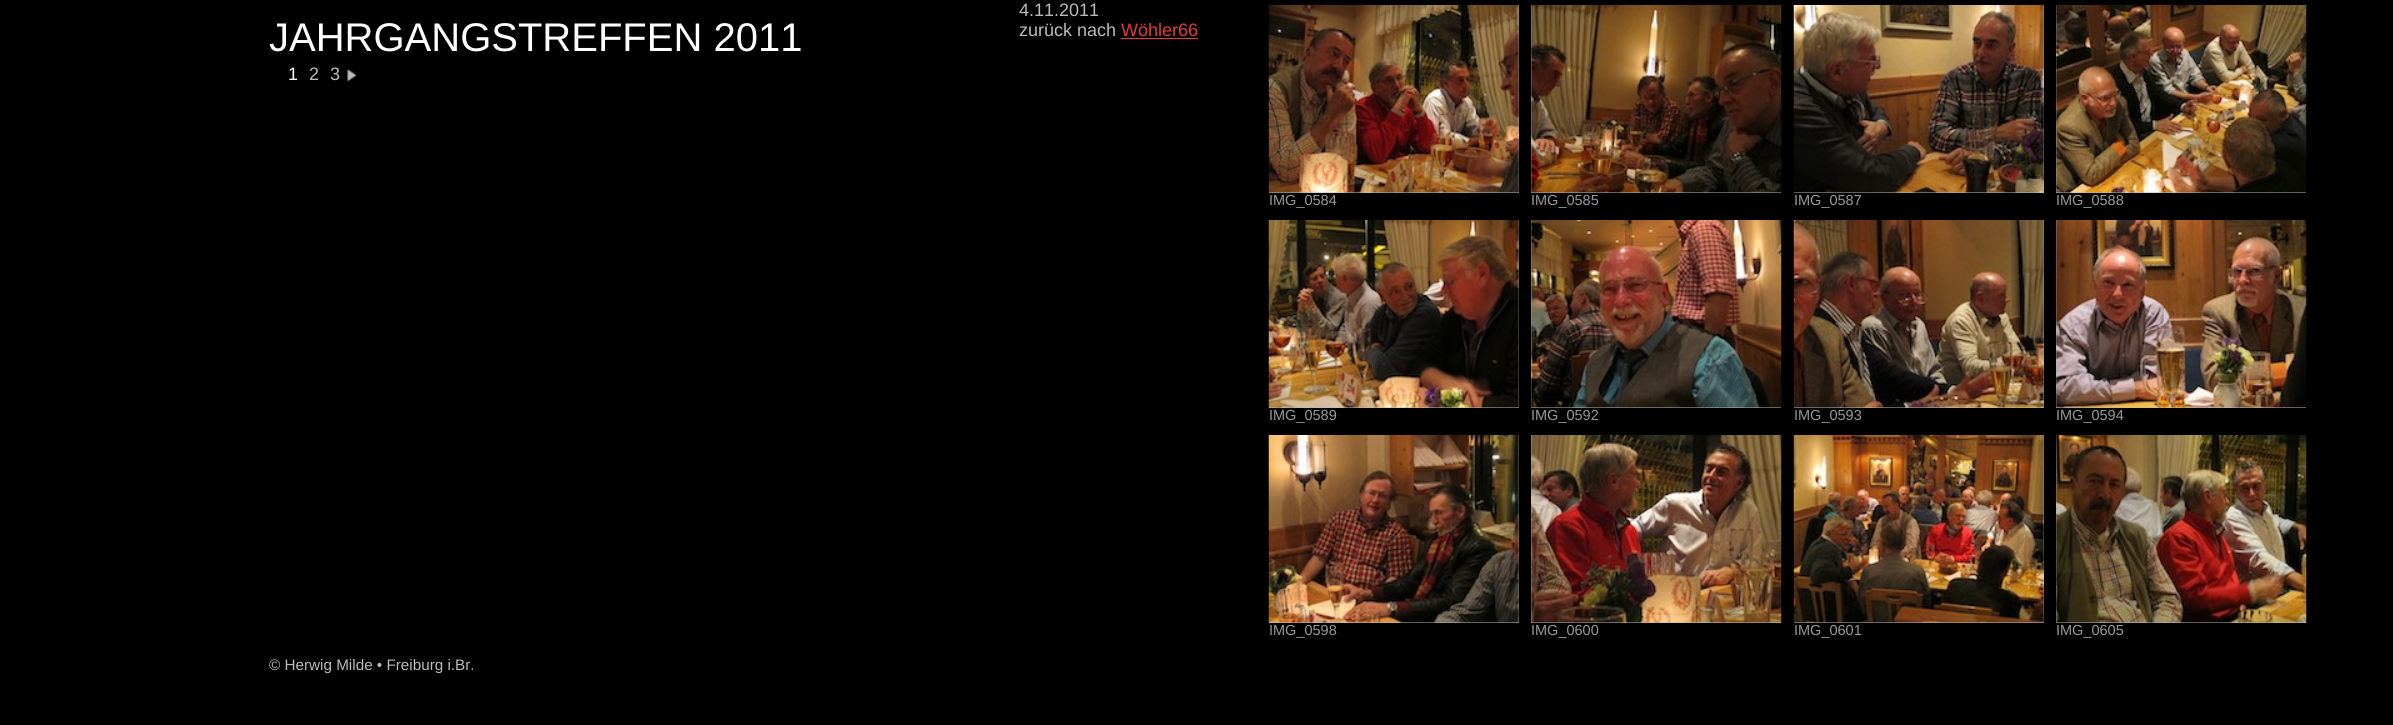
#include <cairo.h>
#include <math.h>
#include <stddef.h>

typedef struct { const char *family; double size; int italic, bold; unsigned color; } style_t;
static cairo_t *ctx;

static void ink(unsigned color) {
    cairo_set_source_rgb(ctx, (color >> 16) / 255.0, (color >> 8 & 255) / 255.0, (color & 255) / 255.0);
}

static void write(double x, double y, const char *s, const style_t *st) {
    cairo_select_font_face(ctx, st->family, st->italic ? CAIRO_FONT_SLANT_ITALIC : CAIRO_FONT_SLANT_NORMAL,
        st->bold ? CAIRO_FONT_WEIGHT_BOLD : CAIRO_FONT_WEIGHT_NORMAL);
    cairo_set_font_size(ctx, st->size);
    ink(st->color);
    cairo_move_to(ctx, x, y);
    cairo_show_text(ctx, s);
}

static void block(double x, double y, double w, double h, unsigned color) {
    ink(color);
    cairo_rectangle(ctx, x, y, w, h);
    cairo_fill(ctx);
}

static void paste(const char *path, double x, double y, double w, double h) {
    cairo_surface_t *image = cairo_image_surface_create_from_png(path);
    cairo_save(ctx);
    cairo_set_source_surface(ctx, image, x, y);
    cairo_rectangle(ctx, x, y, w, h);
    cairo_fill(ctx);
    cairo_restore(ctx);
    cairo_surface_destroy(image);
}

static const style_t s1 = {"Liberation Sans", 40, 0, 0, 0xffffff};
static const style_t s2 = {"Liberation Sans", 18, 0, 0, 0xffffff};
static const style_t s3 = {"Liberation Sans", 18, 0, 0, 0xbbbbbb};
static const style_t s4 = {"Liberation Sans", 18, 0, 0, 0xe13a3b};
static const style_t s5 = {"Liberation Sans", 14.5, 0, 0, 0x999999};
static const style_t s6 = {"Liberation Sans", 15.25, 0, 0, 0xbbbbbb};

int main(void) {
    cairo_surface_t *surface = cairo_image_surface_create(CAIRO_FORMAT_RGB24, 2393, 725);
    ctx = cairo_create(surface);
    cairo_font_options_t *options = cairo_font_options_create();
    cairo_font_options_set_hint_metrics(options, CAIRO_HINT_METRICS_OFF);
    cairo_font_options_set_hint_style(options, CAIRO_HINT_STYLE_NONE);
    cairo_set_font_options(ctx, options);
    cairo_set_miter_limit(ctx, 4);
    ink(0x000000);
    cairo_paint(ctx);
    write(269, 51, "JAHRGANGSTREFFEN 2011", &s1);
    write(288, 80, "1", &s2);
    write(309, 80, "2", &s3);
    write(330, 80, "3", &s3);
    paste("pic1.png", 347, 68, 10, 14);
    write(1019, 16, "4.11.2011", &s3);
    write(1019, 36, "zurück nach", &s3);
    write(1121, 36, "Wöhler66", &s4);
    block(1121, 38, 77, 1, 0xe13a3b);
    block(1269, 5, 250, 188, 0xbbbbbb);
    paste("pic2.png", 1268, 5, 251, 188);
    write(1269, 205, "IMG_0584", &s5);
    block(1531, 5, 250, 188, 0xbbbbbb);
    paste("pic3.png", 1531, 5, 251, 188);
    write(1531, 205, "IMG_0585", &s5);
    block(1794, 5, 250, 188, 0xbbbbbb);
    paste("pic4.png", 1793, 5, 251, 188);
    write(1794, 205, "IMG_0587", &s5);
    block(2056, 5, 250, 188, 0xbbbbbb);
    paste("pic5.png", 2056, 5, 251, 188);
    write(2056, 205, "IMG_0588", &s5);
    block(1269, 220, 250, 188, 0xbbbbbb);
    paste("pic6.png", 1268, 220, 251, 188);
    write(1269, 420, "IMG_0589", &s5);
    block(1531, 220, 250, 188, 0xbbbbbb);
    paste("pic7.png", 1531, 220, 251, 188);
    write(1531, 420, "IMG_0592", &s5);
    block(1794, 220, 250, 188, 0xbbbbbb);
    paste("pic8.png", 1793, 220, 251, 188);
    write(1794, 420, "IMG_0593", &s5);
    block(2056, 220, 250, 188, 0xbbbbbb);
    paste("pic9.png", 2056, 220, 251, 188);
    write(2056, 420, "IMG_0594", &s5);
    block(1269, 435, 250, 188, 0xbbbbbb);
    paste("pic10.png", 1268, 435, 251, 188);
    write(1269, 635, "IMG_0598", &s5);
    block(1531, 435, 250, 188, 0xbbbbbb);
    paste("pic11.png", 1531, 435, 251, 188);
    write(1531, 635, "IMG_0600", &s5);
    block(1794, 435, 250, 188, 0xbbbbbb);
    paste("pic12.png", 1793, 435, 251, 188);
    write(1794, 635, "IMG_0601", &s5);
    block(2056, 435, 250, 188, 0xbbbbbb);
    paste("pic13.png", 2056, 435, 251, 188);
    write(2056, 635, "IMG_0605", &s5);
    write(269, 670, "© Herwig Milde • Freiburg i.Br.", &s6);
    cairo_surface_write_to_png(surface, "screenshot.png");
    cairo_font_options_destroy(options);
    cairo_destroy(ctx);
    cairo_surface_destroy(surface);
    return 0;
}
